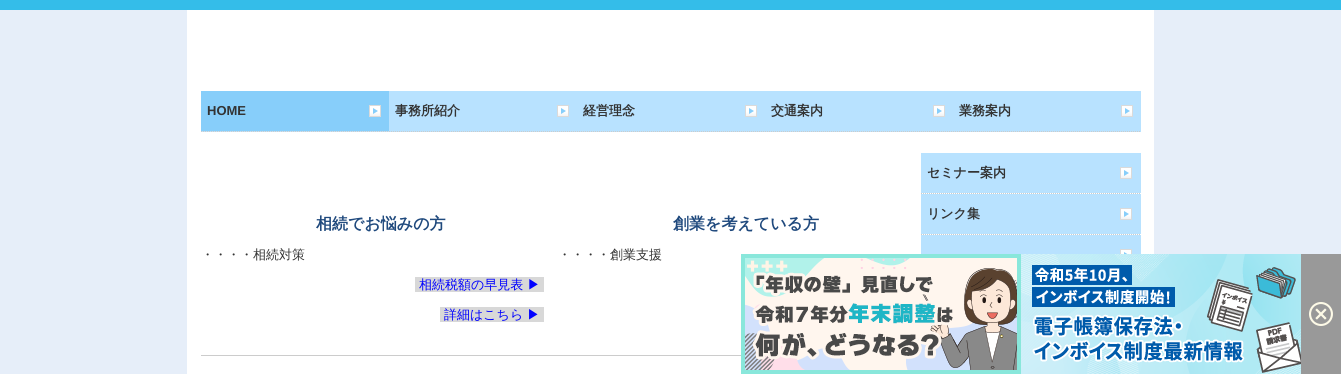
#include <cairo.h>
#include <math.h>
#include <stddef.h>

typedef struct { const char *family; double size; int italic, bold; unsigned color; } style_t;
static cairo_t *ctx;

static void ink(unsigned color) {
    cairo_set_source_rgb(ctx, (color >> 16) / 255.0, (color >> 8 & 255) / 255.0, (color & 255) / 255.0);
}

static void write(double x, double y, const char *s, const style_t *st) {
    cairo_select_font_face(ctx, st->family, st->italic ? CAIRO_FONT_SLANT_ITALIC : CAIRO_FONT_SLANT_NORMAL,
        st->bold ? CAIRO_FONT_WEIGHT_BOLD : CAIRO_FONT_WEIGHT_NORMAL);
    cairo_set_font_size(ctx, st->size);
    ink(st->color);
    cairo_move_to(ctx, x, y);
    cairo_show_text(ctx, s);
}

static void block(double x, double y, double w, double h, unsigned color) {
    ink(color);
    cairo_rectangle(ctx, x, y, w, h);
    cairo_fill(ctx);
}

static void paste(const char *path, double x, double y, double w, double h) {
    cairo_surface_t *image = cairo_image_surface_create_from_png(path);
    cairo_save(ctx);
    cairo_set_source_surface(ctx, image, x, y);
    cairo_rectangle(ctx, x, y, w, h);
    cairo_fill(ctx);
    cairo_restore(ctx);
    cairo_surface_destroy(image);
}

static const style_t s1 = {"Liberation Sans", 13, 0, 1, 0x333333};
static const style_t s2 = {"WenQuanYi Zen Hei", 13, 0, 1, 0x333333};
static const style_t s3 = {"WenQuanYi Zen Hei", 16, 0, 1, 0x1f497d};
static const style_t s4 = {"WenQuanYi Zen Hei Medium", 13, 0, 0, 0x333333};
static const style_t s5 = {"WenQuanYi Zen Hei Medium", 13, 0, 0, 0x0000ff};

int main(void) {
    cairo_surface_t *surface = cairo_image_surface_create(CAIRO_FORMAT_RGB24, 1341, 374);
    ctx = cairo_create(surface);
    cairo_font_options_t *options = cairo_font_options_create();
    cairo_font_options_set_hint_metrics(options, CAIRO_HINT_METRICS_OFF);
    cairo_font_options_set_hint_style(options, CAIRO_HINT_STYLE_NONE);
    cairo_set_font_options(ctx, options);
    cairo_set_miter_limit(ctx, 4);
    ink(0xe6eef9);
    cairo_paint(ctx);
    block(0, 0, 1341, 10, 0x34bde9);
    block(187, 10, 967, 364, 0xffffff);
    block(202, 91, 939, 41, 0xb8e2ff);
    cairo_new_path(ctx);
    cairo_move_to(ctx, 201, 131.5);
    cairo_line_to(ctx, 1141, 131.5);
    ink(0xcccccc);
    cairo_set_line_width(ctx, 1);
    cairo_set_dash(ctx, (double[]){1, 1}, 2, 0);
    cairo_stroke(ctx);
    block(201, 91, 188, 40, 0x87cefa);
    paste("pic1.png", 369, 105, 12, 12);
    write(207, 115, "HOME", &s1);
    paste("pic1.png", 557, 105, 12, 12);
    write(395, 115, "事務所紹介", &s2);
    paste("pic1.png", 745, 105, 12, 12);
    write(583, 115, "経営理念", &s2);
    paste("pic1.png", 933, 105, 12, 12);
    write(771, 115, "交通案内", &s2);
    paste("pic1.png", 1121, 105, 12, 12);
    write(959, 115, "業務案内", &s2);
    cairo_new_path(ctx);
    cairo_move_to(ctx, 921, 193.5);
    cairo_line_to(ctx, 1141, 193.5);
    ink(0xcccccc);
    cairo_stroke(ctx);
    block(921, 153, 220, 40, 0xb8e2ff);
    paste("pic1.png", 1120, 167, 12, 12);
    write(927, 177, "セミナー案内", &s2);
    cairo_new_path(ctx);
    cairo_move_to(ctx, 921, 234.5);
    cairo_line_to(ctx, 1141, 234.5);
    ink(0xcccccc);
    cairo_stroke(ctx);
    block(921, 194, 220, 40, 0xb8e2ff);
    paste("pic1.png", 1120, 208, 12, 12);
    write(927, 218, "リンク集", &s2);
    block(921, 235, 220, 19, 0xb8e2ff);
    paste("pic2.png", 1120, 249, 12, 5);
    write(316, 229, "相続でお悩みの方", &s3);
    write(201, 259, "・・・・相続対策", &s4);
    block(415, 277, 129, 15, 0xd8d8d8);
    write(419, 289, "相続税額の早見表 ▶", &s5);
    block(440, 307, 104, 15, 0xd8d8d8);
    write(444, 319, "詳細はこちら ▶", &s5);
    write(673, 229, "創業を考えている方", &s3);
    write(558, 259, "・・・・創業支援", &s4);
    block(201, 355, 540, 1, 0xcccccc);
    paste("pic3.png", 741, 254, 280, 120);
    paste("pic4.png", 1021, 254, 280, 120);
    block(1301, 254, 40, 120, 0x999999);
    paste("pic5.png", 1309, 302, 24, 24);
    cairo_surface_write_to_png(surface, "screenshot.png");
    cairo_font_options_destroy(options);
    cairo_destroy(ctx);
    cairo_surface_destroy(surface);
    return 0;
}
